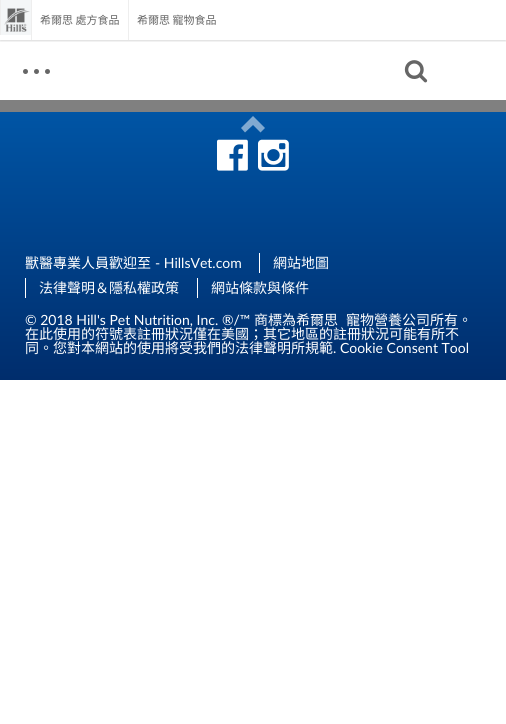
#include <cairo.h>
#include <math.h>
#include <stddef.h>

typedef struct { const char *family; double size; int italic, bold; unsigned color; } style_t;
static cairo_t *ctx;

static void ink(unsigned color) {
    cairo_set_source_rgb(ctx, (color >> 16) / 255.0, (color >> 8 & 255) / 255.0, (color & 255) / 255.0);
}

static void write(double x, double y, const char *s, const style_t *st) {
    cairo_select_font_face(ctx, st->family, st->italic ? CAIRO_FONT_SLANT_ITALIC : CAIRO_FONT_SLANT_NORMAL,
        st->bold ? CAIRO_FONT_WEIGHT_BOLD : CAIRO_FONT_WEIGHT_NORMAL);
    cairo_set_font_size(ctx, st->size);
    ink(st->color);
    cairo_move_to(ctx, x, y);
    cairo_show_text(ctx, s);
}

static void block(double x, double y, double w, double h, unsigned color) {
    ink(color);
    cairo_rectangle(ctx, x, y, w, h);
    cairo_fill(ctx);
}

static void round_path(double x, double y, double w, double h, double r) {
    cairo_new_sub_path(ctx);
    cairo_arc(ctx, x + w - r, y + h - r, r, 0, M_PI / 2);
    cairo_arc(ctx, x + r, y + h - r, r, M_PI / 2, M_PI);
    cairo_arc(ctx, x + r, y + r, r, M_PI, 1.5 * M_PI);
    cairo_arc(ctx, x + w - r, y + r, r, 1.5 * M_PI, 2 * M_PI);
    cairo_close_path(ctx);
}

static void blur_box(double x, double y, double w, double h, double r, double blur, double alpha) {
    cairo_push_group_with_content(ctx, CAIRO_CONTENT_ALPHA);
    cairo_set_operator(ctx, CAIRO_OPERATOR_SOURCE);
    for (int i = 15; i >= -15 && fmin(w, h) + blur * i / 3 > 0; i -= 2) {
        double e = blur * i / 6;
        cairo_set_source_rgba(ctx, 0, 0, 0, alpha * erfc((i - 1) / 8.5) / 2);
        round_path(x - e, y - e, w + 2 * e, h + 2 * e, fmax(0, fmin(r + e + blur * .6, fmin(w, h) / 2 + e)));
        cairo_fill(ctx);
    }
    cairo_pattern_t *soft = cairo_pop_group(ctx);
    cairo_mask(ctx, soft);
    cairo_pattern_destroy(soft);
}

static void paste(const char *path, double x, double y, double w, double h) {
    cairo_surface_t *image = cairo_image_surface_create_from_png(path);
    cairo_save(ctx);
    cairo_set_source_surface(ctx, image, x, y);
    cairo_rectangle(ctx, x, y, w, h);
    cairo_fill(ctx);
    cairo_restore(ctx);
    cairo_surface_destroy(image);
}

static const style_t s1 = {"Noto Sans CJK HK", 11, 0, 0, 0x666666};
static const style_t s2 = {"Noto Sans CJK HK", 14, 0, 0, 0xffffff};
static const style_t s3 = {"Lato", 14, 0, 0, 0xffffff};

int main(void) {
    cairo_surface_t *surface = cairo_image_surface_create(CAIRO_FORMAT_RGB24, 506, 724);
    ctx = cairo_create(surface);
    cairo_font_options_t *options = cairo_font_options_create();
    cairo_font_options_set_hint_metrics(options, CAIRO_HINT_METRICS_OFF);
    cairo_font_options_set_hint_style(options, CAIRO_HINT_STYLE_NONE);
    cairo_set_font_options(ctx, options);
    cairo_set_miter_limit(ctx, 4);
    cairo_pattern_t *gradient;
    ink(0xffffff);
    cairo_paint(ctx);
    cairo_save(ctx);
    cairo_rectangle(ctx, 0, 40, 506, 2);
    cairo_clip(ctx);
    ink(0x000000);
    blur_box(0, 1, 506, 40, 0, 1, 0.15);
    cairo_restore(ctx);
    block(1, 0, 30, 35, 0xf4f6f7);
    block(0, 0, 1, 35, 0xeeeeee);
    paste("pic1.png", 4, 8, 26, 24);
    block(31, 0, 1, 40, 0xeeeeee);
    write(40, 24, "希爾思 處方食品", &s1);
    block(128, 0, 1, 40, 0xeeeeee);
    write(137, 24, "希爾思 寵物食品", &s1);
    cairo_new_path(ctx);
    cairo_arc(ctx, 36.5, 71.5, 2.5, 0, 2 * M_PI);
    cairo_fill(ctx);
    cairo_arc(ctx, 25.5, 71.5, 2.5, 0, 2 * M_PI);
    cairo_fill(ctx);
    cairo_arc(ctx, 47.5, 71.5, 2.5, 0, 2 * M_PI);
    cairo_fill(ctx);
    paste("pic2.png", 404, 60, 24, 23);
    block(0, 100, 506, 12, 0x808080);
    gradient = cairo_pattern_create_linear(253, 380, 253, 112);
    cairo_pattern_add_color_stop_rgba(gradient, 0, 0, 0.176, 0.424, 1);
    cairo_pattern_add_color_stop_rgba(gradient, 1, 0, 0.333, 0.647, 1);
    cairo_set_source(ctx, gradient);
    cairo_pattern_destroy(gradient);
    cairo_rectangle(ctx, 0, 112, 506, 268);
    cairo_fill(ctx);
    cairo_set_source_rgba(ctx, 1, 1, 1, 0.5);
    cairo_new_path(ctx);
    cairo_move_to(ctx, 265, 128);
    cairo_line_to(ctx, 260.5, 132.5);
    cairo_line_to(ctx, 253, 125);
    cairo_line_to(ctx, 245, 132.5);
    cairo_line_to(ctx, 241, 128);
    cairo_line_to(ctx, 253, 116);
    cairo_close_path(ctx);
    cairo_fill(ctx);
    paste("pic3.png", 217, 139, 31, 32);
    paste("pic4.png", 258, 139, 31, 32);
    write(25, 268, "獸醫專業人員歡迎至", &s2);
    write(155, 268, "- HillsVet.com", &s3);
    block(259, 253, 1, 20, 0xffffff);
    write(273, 268, "網站地圖", &s2);
    block(25, 278, 1, 20, 0xffffff);
    write(39, 293, "法律聲明＆隱私權政策", &s2);
    block(197, 278, 1, 20, 0xffffff);
    write(211, 293, "網站條款與條件", &s2);
    write(25, 325, "© 2018 Hill's Pet Nutrition, Inc. ®/™", &s3);
    write(254, 325, "商標為希爾思", &s2);
    write(346, 325, "寵物營養公司所有。", &s2);
    write(25, 339, "在此使用的符號表註冊狀況僅在美國；其它地區的註冊狀況可能有所不", &s2);
    write(25, 353, "同。您對本網站的使用將受我們的法律聲明所規範", &s2);
    write(333, 353, ". Cookie Consent Tool", &s3);
    cairo_surface_write_to_png(surface, "screenshot.png");
    cairo_font_options_destroy(options);
    cairo_destroy(ctx);
    cairo_surface_destroy(surface);
    return 0;
}
